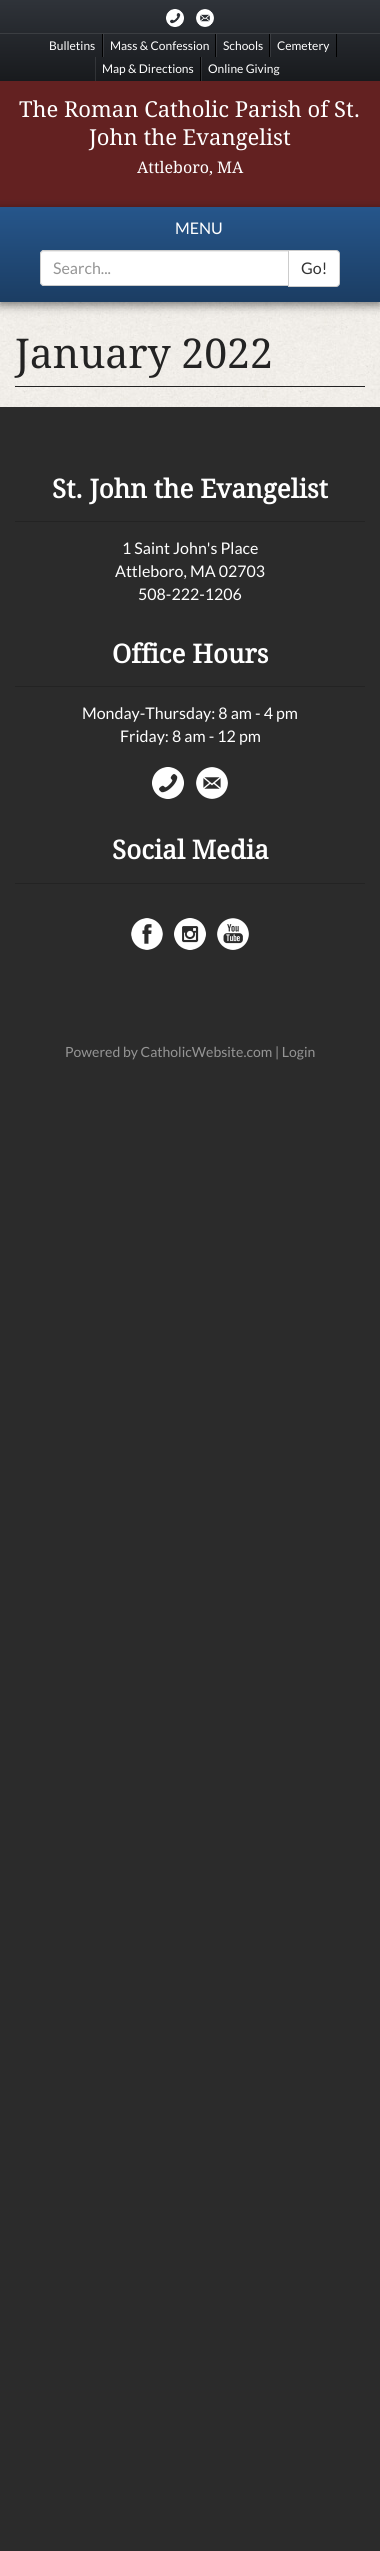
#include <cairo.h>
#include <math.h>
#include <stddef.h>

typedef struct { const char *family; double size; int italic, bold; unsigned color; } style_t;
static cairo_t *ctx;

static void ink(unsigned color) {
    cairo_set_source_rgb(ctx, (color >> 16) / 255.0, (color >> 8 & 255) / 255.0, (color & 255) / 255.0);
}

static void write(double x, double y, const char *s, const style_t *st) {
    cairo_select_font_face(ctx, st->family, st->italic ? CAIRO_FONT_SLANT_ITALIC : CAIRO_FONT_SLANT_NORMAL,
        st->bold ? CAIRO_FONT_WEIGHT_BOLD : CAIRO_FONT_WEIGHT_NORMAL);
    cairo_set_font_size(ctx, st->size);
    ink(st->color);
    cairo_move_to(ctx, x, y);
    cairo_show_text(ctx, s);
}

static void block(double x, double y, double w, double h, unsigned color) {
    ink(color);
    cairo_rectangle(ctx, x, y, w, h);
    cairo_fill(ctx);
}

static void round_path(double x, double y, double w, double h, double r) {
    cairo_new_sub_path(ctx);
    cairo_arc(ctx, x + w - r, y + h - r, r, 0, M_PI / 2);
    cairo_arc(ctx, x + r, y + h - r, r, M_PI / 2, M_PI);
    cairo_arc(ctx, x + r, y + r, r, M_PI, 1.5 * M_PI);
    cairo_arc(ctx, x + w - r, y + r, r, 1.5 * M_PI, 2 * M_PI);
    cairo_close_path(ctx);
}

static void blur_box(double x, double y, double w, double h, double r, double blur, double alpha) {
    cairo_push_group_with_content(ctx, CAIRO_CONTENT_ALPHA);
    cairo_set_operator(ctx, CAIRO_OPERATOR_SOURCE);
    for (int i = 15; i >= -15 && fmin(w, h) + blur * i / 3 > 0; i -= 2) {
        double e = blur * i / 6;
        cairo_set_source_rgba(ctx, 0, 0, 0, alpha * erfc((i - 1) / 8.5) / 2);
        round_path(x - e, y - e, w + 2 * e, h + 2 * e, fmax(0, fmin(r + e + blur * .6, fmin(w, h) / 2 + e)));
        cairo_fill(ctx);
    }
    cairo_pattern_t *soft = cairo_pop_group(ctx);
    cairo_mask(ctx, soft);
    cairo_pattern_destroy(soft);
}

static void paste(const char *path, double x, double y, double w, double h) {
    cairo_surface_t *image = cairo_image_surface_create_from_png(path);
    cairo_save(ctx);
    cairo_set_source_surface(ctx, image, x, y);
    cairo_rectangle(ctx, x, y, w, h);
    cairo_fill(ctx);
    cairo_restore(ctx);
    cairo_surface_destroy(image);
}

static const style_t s1 = {"Lato", 12, 0, 0, 0xffffff};
static const style_t s2 = {"Droid Serif", 22, 0, 0, 0xffffff};
static const style_t s3 = {"Droid Serif", 16, 0, 0, 0xffffff};
static const style_t s4 = {"Lato", 16, 0, 0, 0xffffff};
static const style_t s5 = {"Lato", 16, 0, 0, 0x959595};
static const style_t s6 = {"Lato", 16, 0, 0, 0x333333};
static const style_t s7 = {"Droid Serif", 41, 0, 0, 0x232323};
static const style_t s8 = {"Droid Serif", 26, 0, 1, 0xffffff};
static const style_t s9 = {"Lato", 14, 0, 0, 0x959595};

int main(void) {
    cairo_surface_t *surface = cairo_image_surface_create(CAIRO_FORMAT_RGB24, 380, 2551);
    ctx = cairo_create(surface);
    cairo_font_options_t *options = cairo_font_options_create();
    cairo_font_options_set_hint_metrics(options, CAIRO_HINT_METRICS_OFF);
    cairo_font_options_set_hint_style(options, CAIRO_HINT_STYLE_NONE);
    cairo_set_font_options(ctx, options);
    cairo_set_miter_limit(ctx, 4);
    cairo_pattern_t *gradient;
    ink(0x2b2b2b);
    cairo_paint(ctx);
    gradient = cairo_pattern_create_linear(190, 0, 190, 81);
    cairo_pattern_add_color_stop_rgba(gradient, 0, 0.184, 0.2, 0.224, 1);
    cairo_pattern_add_color_stop_rgba(gradient, 1, 0.094, 0.102, 0.114, 1);
    cairo_set_source(ctx, gradient);
    cairo_pattern_destroy(gradient);
    cairo_rectangle(ctx, 0, 0, 380, 81);
    cairo_fill(ctx);
    gradient = cairo_pattern_create_linear(190, 0, 190, 81);
    cairo_pattern_add_color_stop_rgba(gradient, 0, 0.267, 0.278, 0.302, 1);
    cairo_pattern_add_color_stop_rgba(gradient, 1, 0.184, 0.192, 0.204, 1);
    cairo_set_source(ctx, gradient);
    cairo_pattern_destroy(gradient);
    cairo_rectangle(ctx, 201, 57, 1, 24);
    cairo_fill(ctx);
    cairo_rectangle(ctx, 95, 57, 1, 24);
    cairo_fill(ctx);
    cairo_rectangle(ctx, 270, 34, 1, 23);
    cairo_fill(ctx);
    cairo_rectangle(ctx, 216, 34, 1, 23);
    cairo_fill(ctx);
    cairo_rectangle(ctx, 103, 34, 1, 23);
    cairo_fill(ctx);
    paste("pic1.png", 166, 9, 18, 18);
    paste("pic2.png", 196, 9, 18, 18);
    block(0, 33, 380, 1, 0x3b3e42);
    block(102, 34, 1, 23, 0x000000);
    write(49, 50, "Bulletins", &s1);
    block(215, 34, 1, 23, 0x000000);
    write(110, 50, "Mass & Confession", &s1);
    block(269, 34, 1, 23, 0x000000);
    write(223, 50, "Schools", &s1);
    block(336, 34, 1, 23, 0x000000);
    write(277, 50, "Cemetery", &s1);
    block(200, 57, 1, 24, 0x000000);
    write(102, 73, "Map & Directions", &s1);
    write(208, 73, "Online Giving", &s1);
    block(0, 81, 380, 126, 0x632121);
    write(19, 117, "The Roman Catholic Parish of St.", &s2);
    write(89, 145, "John the Evangelist", &s2);
    write(137, 173, "Attleboro, MA", &s3);
    paste("pic3.png", 0, 302, 380, 105);
    ink(0x000000);
    blur_box(0, 210, 380, 95, 0, 5, 0.5);
    gradient = cairo_pattern_create_linear(190, 207, 190, 302);
    cairo_pattern_add_color_stop_rgba(gradient, 0, 0.149, 0.337, 0.545, 1);
    cairo_pattern_add_color_stop_rgba(gradient, 1, 0.106, 0.239, 0.388, 1);
    cairo_set_source(ctx, gradient);
    cairo_pattern_destroy(gradient);
    cairo_rectangle(ctx, 0, 207, 380, 95);
    cairo_fill(ctx);
    write(175, 234, "MENU", &s4);
    cairo_new_path(ctx);
    cairo_move_to(ctx, 44, 250);
    cairo_line_to(ctx, 289, 250);
    cairo_line_to(ctx, 289, 286);
    cairo_line_to(ctx, 44, 286);
    cairo_curve_to(ctx, 42, 286, 40, 284, 40, 282);
    cairo_line_to(ctx, 40, 254);
    cairo_curve_to(ctx, 40, 252, 42, 250, 44, 250);
    cairo_close_path(ctx);
    cairo_fill(ctx);
    ink(0xececec);
    cairo_new_path(ctx);
    cairo_move_to(ctx, 44, 252);
    cairo_line_to(ctx, 288, 252);
    cairo_line_to(ctx, 288, 251);
    cairo_line_to(ctx, 44, 251);
    cairo_curve_to(ctx, 42, 251, 41, 253, 41, 255);
    cairo_curve_to(ctx, 41, 253, 42, 252, 44, 252);
    cairo_close_path(ctx);
    cairo_fill(ctx);
    cairo_new_path(ctx);
    cairo_move_to(ctx, 44, 250.5);
    cairo_line_to(ctx, 288.5, 250.5);
    cairo_line_to(ctx, 288.5, 285.5);
    cairo_line_to(ctx, 44, 285.5);
    cairo_curve_to(ctx, 42, 285.5, 40.5, 284, 40.5, 282);
    cairo_line_to(ctx, 40.5, 254);
    cairo_curve_to(ctx, 40.5, 252, 42, 250.5, 44, 250.5);
    cairo_close_path(ctx);
    ink(0xcccccc);
    cairo_set_line_width(ctx, 1);
    cairo_stroke(ctx);
    write(53, 274, "Search...", &s5);
    ink(0xffffff);
    cairo_new_path(ctx);
    cairo_move_to(ctx, 288.5, 250.5);
    cairo_line_to(ctx, 336, 250.5);
    cairo_curve_to(ctx, 338, 250.5, 339.5, 252, 339.5, 254);
    cairo_line_to(ctx, 339.5, 283);
    cairo_curve_to(ctx, 339.5, 285, 338, 286.5, 336, 286.5);
    cairo_line_to(ctx, 288.5, 286.5);
    cairo_close_path(ctx);
    cairo_fill_preserve(ctx);
    ink(0xcccccc);
    cairo_stroke(ctx);
    write(301, 274, "Go!", &s6);
    block(15, 386, 350, 1, 0x232323);
    write(15, 368, "January 2022", &s7);
    block(15, 521, 350, 1, 0x232323);
    write(52, 498, "St. John the Evangelist", &s8);
    write(122, 554, "1 Saint John's Place", &s4);
    write(115, 577, "Attleboro, MA 02703", &s4);
    write(138, 600, "508-222-1206", &s4);
    block(15, 686, 350, 1, 0x232323);
    write(112, 663, "Office Hours", &s8);
    write(82, 719, "Monday-Thursday: 8 am - 4 pm", &s4);
    write(120, 742, "Friday: 8 am - 12 pm", &s4);
    paste("pic4.png", 152, 767, 32, 32);
    paste("pic5.png", 196, 767, 32, 32);
    block(15, 883, 350, 1, 0x232323);
    write(112, 859, "Social Media", &s8);
    paste("pic6.png", 131, 918, 32, 32);
    paste("pic7.png", 174, 918, 32, 32);
    paste("pic8.png", 217, 918, 32, 32);
    write(65, 1057, "Powered by CatholicWebsite.com | Login", &s9);
    cairo_surface_write_to_png(surface, "screenshot.png");
    cairo_font_options_destroy(options);
    cairo_destroy(ctx);
    cairo_surface_destroy(surface);
    return 0;
}
